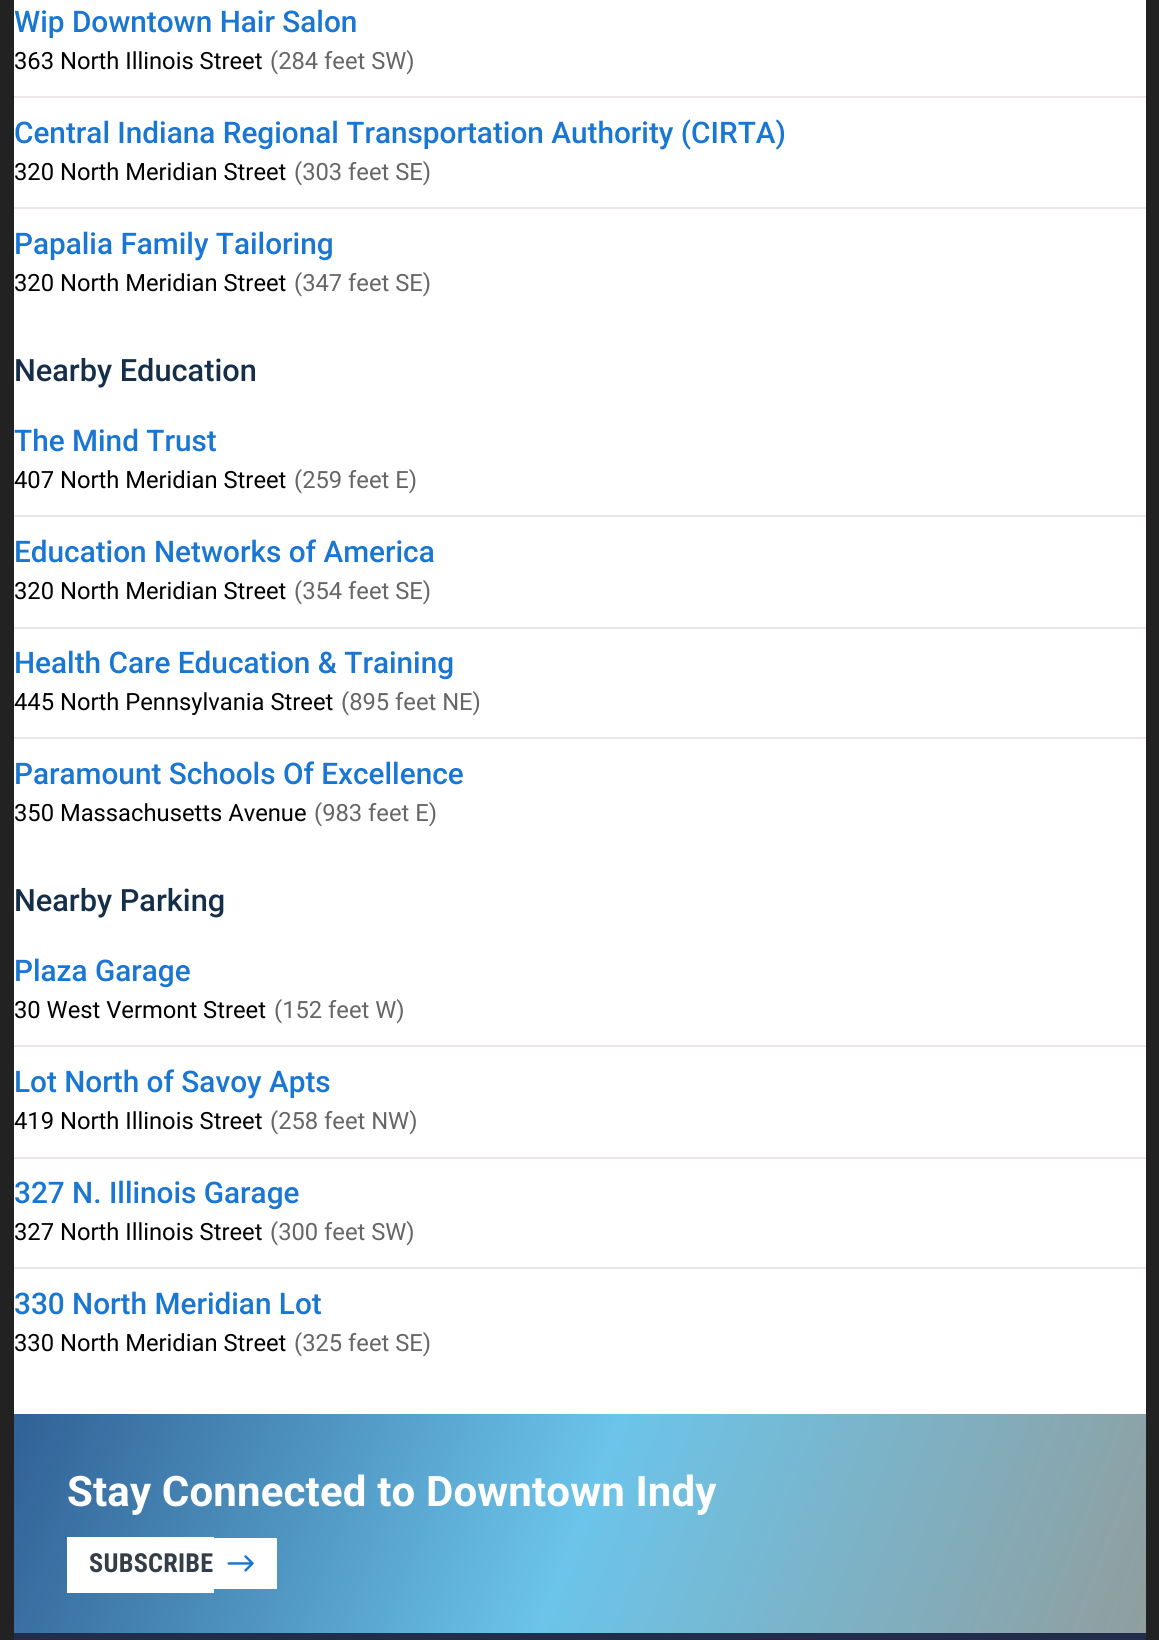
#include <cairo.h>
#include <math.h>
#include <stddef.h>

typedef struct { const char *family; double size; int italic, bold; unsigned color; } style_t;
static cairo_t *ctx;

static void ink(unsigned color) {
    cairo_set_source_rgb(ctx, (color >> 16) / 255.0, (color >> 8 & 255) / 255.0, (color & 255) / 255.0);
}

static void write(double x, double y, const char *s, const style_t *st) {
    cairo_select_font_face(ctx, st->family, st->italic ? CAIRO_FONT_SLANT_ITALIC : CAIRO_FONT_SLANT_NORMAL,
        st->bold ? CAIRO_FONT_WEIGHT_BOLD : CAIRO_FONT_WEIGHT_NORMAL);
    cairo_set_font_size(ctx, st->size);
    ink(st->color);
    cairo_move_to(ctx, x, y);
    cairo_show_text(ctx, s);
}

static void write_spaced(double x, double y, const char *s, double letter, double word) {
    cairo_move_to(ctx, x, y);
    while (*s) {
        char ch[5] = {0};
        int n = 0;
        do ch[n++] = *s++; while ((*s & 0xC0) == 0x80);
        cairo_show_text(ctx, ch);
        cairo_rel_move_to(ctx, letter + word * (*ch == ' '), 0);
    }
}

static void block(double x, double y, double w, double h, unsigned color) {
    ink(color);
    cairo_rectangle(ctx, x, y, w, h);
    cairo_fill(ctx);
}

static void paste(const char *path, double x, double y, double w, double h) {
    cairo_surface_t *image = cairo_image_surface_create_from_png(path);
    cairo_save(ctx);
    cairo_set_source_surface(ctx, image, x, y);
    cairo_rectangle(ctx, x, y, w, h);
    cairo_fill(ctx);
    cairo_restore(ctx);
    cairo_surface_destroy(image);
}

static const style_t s1 = {"Roboto Medium", 29.75, 0, 0, 0x1976d2};
static const style_t s2 = {"Roboto", 23.75, 0, 0, 0x000000};
static const style_t s3 = {"Roboto", 23.75, 0, 0, 0x666666};
static const style_t s4 = {"Roboto Medium", 30.75, 0, 0, 0x162f49};

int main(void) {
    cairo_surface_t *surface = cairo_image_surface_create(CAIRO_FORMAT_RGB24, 1159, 1640);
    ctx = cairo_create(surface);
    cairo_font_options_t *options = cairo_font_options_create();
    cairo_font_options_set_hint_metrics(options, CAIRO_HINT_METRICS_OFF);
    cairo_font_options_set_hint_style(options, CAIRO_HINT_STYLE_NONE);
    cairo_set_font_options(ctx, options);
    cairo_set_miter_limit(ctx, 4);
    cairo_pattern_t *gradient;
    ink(0x222222);
    cairo_paint(ctx);
    block(14, 0, 1132, 1414, 0xffffff);
    block(14, 96, 1132, 2, 0xeee6e8);
    write(14, 32, "Wip Downtown Hair Salon", &s1);
    write(14, 69, "363 North Illinois Street", &s2);
    write(270, 69, "(284 feet SW)", &s3);
    block(14, 207, 1132, 2, 0xeee6e8);
    write(14, 143, "Central Indiana Regional Transportation Authority (CIRTA)", &s1);
    write(14, 180, "320 North Meridian Street", &s2);
    write(294, 180, "(303 feet SE)", &s3);
    write(14, 254, "Papalia Family Tailoring", &s1);
    write(14, 291, "320 North Meridian Street", &s2);
    write(294, 291, "(347 feet SE)", &s3);
    write(14, 381, "Nearby Education", &s4);
    block(14, 515, 1132, 2, 0xeee6e8);
    write(14, 451, "The Mind Trust", &s1);
    write(14, 488, "407 North Meridian Street", &s2);
    write(294, 488, "(259 feet E)", &s3);
    block(14, 627, 1132, 2, 0xeee6e8);
    write(14, 562, "Education Networks of America", &s1);
    write(14, 599, "320 North Meridian Street", &s2);
    write(294, 599, "(354 feet SE)", &s3);
    block(14, 737, 1132, 2, 0xeee6e8);
    write(14, 673, "Health Care Education & Training", &s1);
    write(14, 710, "445 North Pennsylvania Street", &s2);
    write(341, 710, "(895 feet NE)", &s3);
    write(14, 784, "Paramount Schools Of Excellence", &s1);
    write(14, 821, "350 Massachusetts Avenue", &s2);
    write(314, 821, "(983 feet E)", &s3);
    write(14, 911, "Nearby Parking", &s4);
    block(14, 1045, 1132, 2, 0xeee6e8);
    write(14, 981, "Plaza Garage", &s1);
    write(14, 1018, "30 West Vermont Street", &s2);
    write(274, 1018, "(152 feet W)", &s3);
    block(14, 1157, 1132, 2, 0xeee6e8);
    write(14, 1092, "Lot North of Savoy Apts", &s1);
    write(14, 1129, "419 North Illinois Street", &s2);
    write(270, 1129, "(258 feet NW)", &s3);
    block(14, 1267, 1132, 2, 0xeee6e8);
    write(14, 1203, "327 N. Illinois Garage", &s1);
    write(14, 1240, "327 North Illinois Street", &s2);
    write(270, 1240, "(300 feet SW)", &s3);
    write(14, 1314, "330 North Meridian Lot", &s1);
    write(14, 1351, "330 North Meridian Street", &s2);
    write(294, 1351, "(325 feet SE)", &s3);
    gradient = cairo_pattern_create_linear(50, 1320, 1110, 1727);
    cairo_pattern_add_color_stop_rgba(gradient, 0, 0.192, 0.38, 0.588, 1);
    cairo_pattern_add_color_stop_rgba(gradient, 0.5, 0.42, 0.769, 0.918, 1);
    cairo_pattern_add_color_stop_rgba(gradient, 1, 0.565, 0.62, 0.62, 1);
    cairo_set_source(ctx, gradient);
    cairo_pattern_destroy(gradient);
    cairo_rectangle(ctx, 14, 1414, 1132, 219);
    cairo_fill(ctx);
    cairo_select_font_face(ctx, "Roboto", CAIRO_FONT_SLANT_NORMAL, CAIRO_FONT_WEIGHT_BOLD);
    cairo_set_font_size(ctx, 42);
    ink(0xffffff);
    write_spaced(67, 1506, "Stay Connected to Downtown Indy", 0.15, 0);
    block(67, 1537, 147, 56, 0xffffff);
    block(214, 1538, 63, 51, 0xffffff);
    cairo_select_font_face(ctx, "Roboto Condensed", CAIRO_FONT_SLANT_NORMAL, CAIRO_FONT_WEIGHT_BOLD);
    cairo_set_font_size(ctx, 26.25);
    ink(0x333e48);
    write_spaced(89, 1572, "SUBSCRIBE", 0.25, 0);
    paste("pic1.png", 227, 1555, 27, 17);
    block(14, 1633, 1132, 7, 0x222d4c);
    cairo_surface_write_to_png(surface, "screenshot.png");
    cairo_font_options_destroy(options);
    cairo_destroy(ctx);
    cairo_surface_destroy(surface);
    return 0;
}
